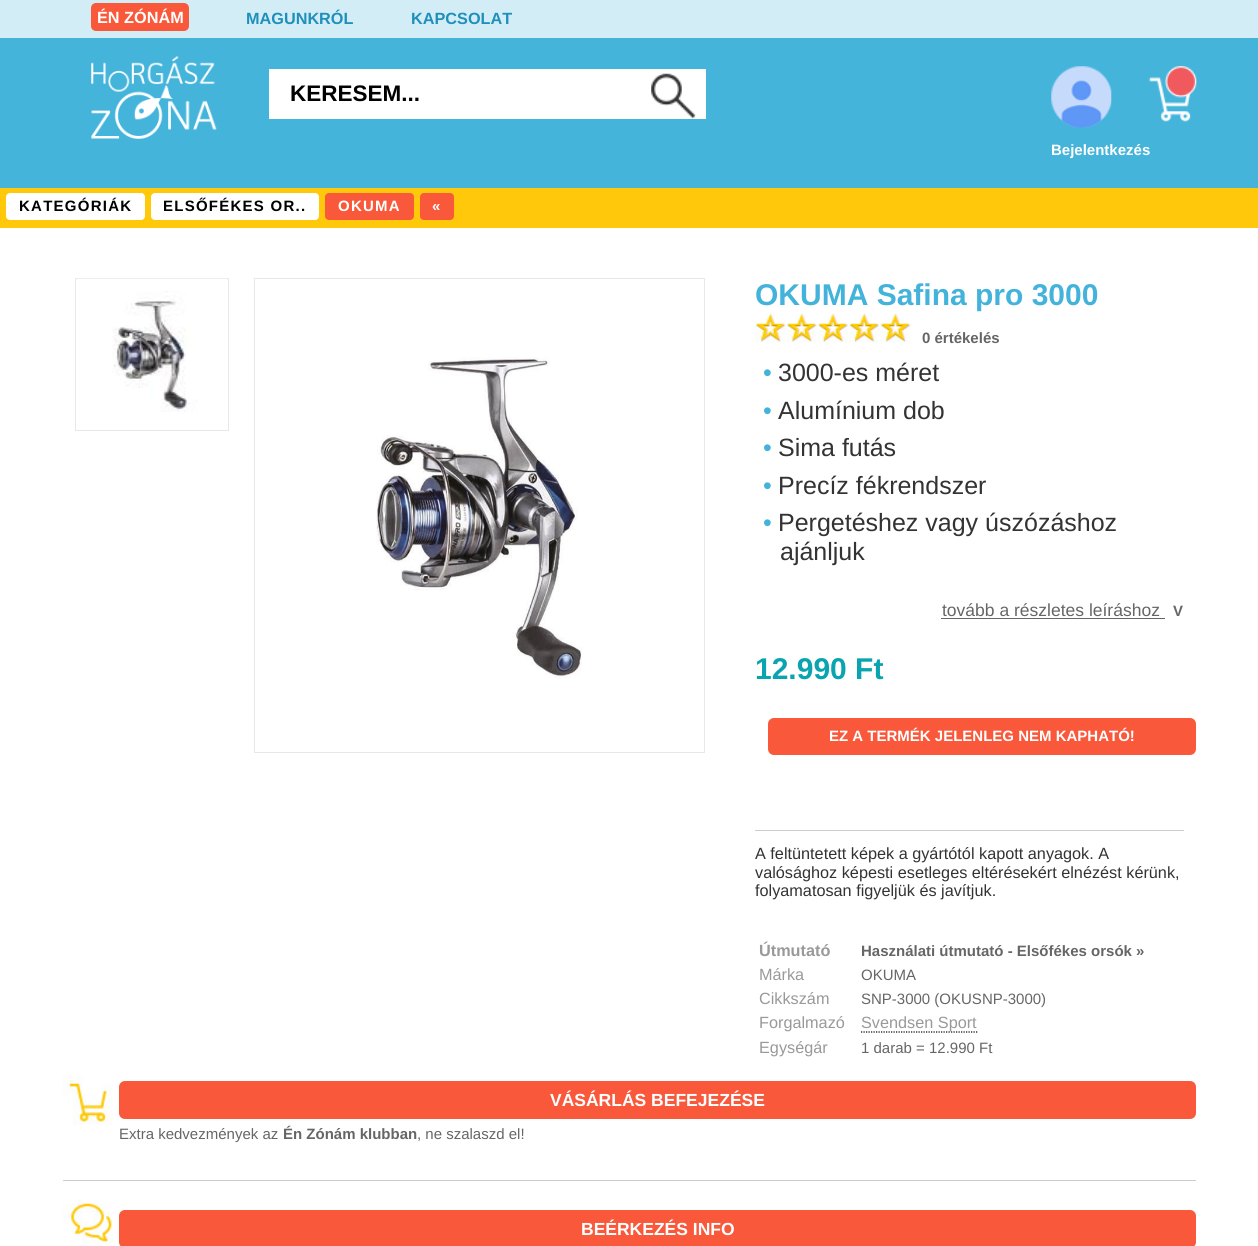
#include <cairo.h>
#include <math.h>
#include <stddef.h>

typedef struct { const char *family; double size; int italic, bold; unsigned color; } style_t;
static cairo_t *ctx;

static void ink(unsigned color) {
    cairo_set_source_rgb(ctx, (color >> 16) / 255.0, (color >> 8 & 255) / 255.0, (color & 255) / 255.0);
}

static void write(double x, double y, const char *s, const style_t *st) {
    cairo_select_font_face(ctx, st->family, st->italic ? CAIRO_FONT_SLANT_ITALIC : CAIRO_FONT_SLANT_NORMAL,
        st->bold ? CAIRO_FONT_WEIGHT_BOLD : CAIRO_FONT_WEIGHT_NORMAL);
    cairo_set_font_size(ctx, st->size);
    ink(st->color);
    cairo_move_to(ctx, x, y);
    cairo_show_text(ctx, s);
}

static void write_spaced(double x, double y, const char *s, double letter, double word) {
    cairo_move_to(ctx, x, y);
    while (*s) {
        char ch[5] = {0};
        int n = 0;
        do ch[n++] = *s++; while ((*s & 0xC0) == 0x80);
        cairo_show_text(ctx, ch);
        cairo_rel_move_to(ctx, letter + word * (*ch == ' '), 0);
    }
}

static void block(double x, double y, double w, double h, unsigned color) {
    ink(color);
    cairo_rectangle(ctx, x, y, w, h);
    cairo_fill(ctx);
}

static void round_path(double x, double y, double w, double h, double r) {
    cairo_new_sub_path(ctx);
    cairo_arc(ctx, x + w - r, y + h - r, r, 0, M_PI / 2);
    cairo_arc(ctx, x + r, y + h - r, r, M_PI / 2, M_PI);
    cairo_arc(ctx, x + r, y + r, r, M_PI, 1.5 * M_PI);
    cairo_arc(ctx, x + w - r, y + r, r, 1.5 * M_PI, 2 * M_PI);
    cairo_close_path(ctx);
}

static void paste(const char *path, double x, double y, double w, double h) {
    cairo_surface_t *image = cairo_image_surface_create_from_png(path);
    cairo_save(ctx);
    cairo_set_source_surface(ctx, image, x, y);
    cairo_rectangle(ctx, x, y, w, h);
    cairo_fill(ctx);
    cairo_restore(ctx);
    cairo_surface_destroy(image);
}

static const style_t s1 = {"Liberation Sans", 16.25, 0, 1, 0xffffff};
static const style_t s2 = {"Liberation Sans", 16.25, 0, 1, 0x1f8fbb};
static const style_t s3 = {"Liberation Sans", 22.5, 0, 1, 0x000000};
static const style_t s4 = {"Liberation Sans", 15, 0, 1, 0xffffff};
static const style_t s5 = {"Liberation Sans", 30, 0, 1, 0x43b3db};
static const style_t s6 = {"Liberation Sans", 15, 0, 1, 0x666666};
static const style_t s7 = {"Liberation Sans", 25, 0, 0, 0x43b3db};
static const style_t s8 = {"Liberation Sans", 25, 0, 0, 0x333333};
static const style_t s9 = {"Liberation Sans", 17.5, 0, 0, 0x666666};
static const style_t s10 = {"Liberation Sans", 30, 0, 1, 0x09a4af};
static const style_t s11 = {"Liberation Sans", 16.25, 0, 0, 0x333333};
static const style_t s12 = {"Liberation Sans", 16.25, 0, 1, 0x999999};
static const style_t s13 = {"Liberation Sans", 16.25, 0, 0, 0x999999};
static const style_t s14 = {"Liberation Sans", 15, 0, 0, 0x666666};
static const style_t s15 = {"Liberation Sans", 17.5, 0, 1, 0xffffff};

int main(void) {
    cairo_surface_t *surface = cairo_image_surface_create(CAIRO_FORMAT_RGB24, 1258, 1246);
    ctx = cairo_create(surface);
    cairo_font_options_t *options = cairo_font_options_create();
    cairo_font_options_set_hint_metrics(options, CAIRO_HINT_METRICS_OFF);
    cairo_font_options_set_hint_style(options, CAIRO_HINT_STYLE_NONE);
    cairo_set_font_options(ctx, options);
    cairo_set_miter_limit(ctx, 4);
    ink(0xffffff);
    cairo_paint(ctx);
    block(0, 0, 1258, 38, 0xd2edf6);
    ink(0xf9593a);
    round_path(91, 3, 98, 28, 5);
    cairo_fill(ctx);
    write(97, 23, "ÉN ZÓNÁM", &s1);
    write(246, 24, "MAGUNKRÓL", &s2);
    write(411, 24, "KAPCSOLAT", &s2);
    block(0, 38, 1258, 150, 0x44b4db);
    paste("pic1.png", 91, 56, 126, 83);
    block(269, 69, 437, 50, 0xffffff);
    write(290, 101, "KERESEM...", &s3);
    paste("pic2.png", 651, 73, 45, 46);
    paste("pic3.png", 1148, 66, 49, 56);
    paste("pic4.png", 1051, 66, 61, 62);
    write(1051, 155, "Bejelentkezés", &s4);
    block(0, 188, 1258, 40, 0xffc80a);
    ink(0xffffff);
    round_path(6, 193, 139, 27, 4);
    cairo_fill(ctx);
    ink(0x000000);
    write_spaced(19, 211, "KATEGÓRIÁK", 1.25, 0);
    ink(0xffffff);
    round_path(151, 193, 168, 27, 4);
    cairo_fill(ctx);
    ink(0x000000);
    write_spaced(163, 211, "ELSŐFÉKES OR..", 1.25, 0);
    ink(0xf9593a);
    round_path(325, 193, 89, 27, 4);
    cairo_fill(ctx);
    ink(0xffffff);
    write_spaced(338, 211, "OKUMA", 1.25, 0);
    ink(0xf9593a);
    round_path(420, 193, 34, 27, 4);
    cairo_fill(ctx);
    ink(0xffffff);
    write_spaced(432, 211, "«", 1.25, 0);
    cairo_rectangle(ctx, 75.5, 278.5, 153, 152);
    ink(0xe8e8e8);
    cairo_set_line_width(ctx, 1);
    cairo_stroke(ctx);
    paste("pic5.png", 76, 278, 151, 134);
    cairo_rectangle(ctx, 254.5, 278.5, 450, 474);
    cairo_stroke(ctx);
    paste("pic6.png", 376, 357, 206, 322);
    write(755, 305, "OKUMA Safina pro 3000", &s5);
    paste("pic7.png", 755, 313, 31, 30);
    paste("pic8.png", 786, 313, 31, 30);
    paste("pic9.png", 817, 312, 31, 31);
    paste("pic10.png", 849, 312, 30, 31);
    paste("pic11.png", 880, 313, 31, 30);
    write(922, 343, "0 értékelés", &s6);
    write(763, 381, "•", &s7);
    write(778, 381, "3000-es méret", &s8);
    write(763, 419, "•", &s7);
    write(778, 419, "Alumínium dob", &s8);
    write(763, 456, "•", &s7);
    write(778, 456, "Sima futás", &s8);
    write(763, 494, "•", &s7);
    write(778, 494, "Precíz fékrendszer", &s8);
    write(763, 531, "•", &s7);
    write(778, 531, "Pergetéshez vagy úszózáshoz", &s8);
    write(780, 560, "ajánljuk", &s8);
    write(942, 616, "tovább a részletes leíráshoz", &s9);
    block(941, 618, 224, 1, 0x666666);
    write(1173, 616, "V", &s6);
    write(755, 679, "12.990 Ft", &s10);
    ink(0xf9583b);
    round_path(768, 718, 428, 37, 6);
    cairo_fill(ctx);
    write(829, 741, "EZ A TERMÉK JELENLEG NEM KAPHATÓ!", &s4);
    block(755, 830, 429, 1, 0xcccccc);
    write(755, 859, "A feltüntetett képek a gyártótól kapott anyagok. A", &s11);
    write(755, 878, "valósághoz képesti esetleges eltérésekért elnézést kérünk,", &s11);
    write(755, 896, "folyamatosan figyeljük és javítjuk.", &s11);
    write(759, 956, "Útmutató", &s12);
    write(861, 956, "Használati útmutató - Elsőfékes orsók »", &s6);
    write(759, 980, "Márka", &s13);
    write(861, 980, "OKUMA", &s14);
    write(759, 1004, "Cikkszám", &s13);
    write(861, 1004, "SNP-3000 (OKUSNP-3000)", &s14);
    write(759, 1028, "Forgalmazó", &s13);
    cairo_new_path(ctx);
    cairo_move_to(ctx, 861, 1032);
    cairo_line_to(ctx, 977.5, 1032);
    ink(0x000000);
    cairo_set_line_width(ctx, 1.2);
    cairo_set_dash(ctx, (double[]){1.25, 1.25}, 2, 0);
    cairo_stroke(ctx);
    write(861, 1028, "Svendsen Sport", &s13);
    write(759, 1053, "Egységár", &s13);
    write(861, 1053, "1 darab = 12.990 Ft", &s14);
    paste("pic12.png", 62, 1075, 51, 50);
    ink(0xf9583b);
    round_path(119, 1081, 1077, 38, 6);
    cairo_fill(ctx);
    write(550, 1106, "VÁSÁRLÁS BEFEJEZÉSE", &s15);
    write(119, 1139, "Extra kedvezmények az", &s14);
    write(283, 1139, "Én Zónám klubban", &s6);
    write(417, 1139, ", ne szalaszd el!", &s14);
    block(63, 1180, 1133, 1, 0xcccccc);
    paste("pic13.png", 62, 1203, 51, 41);
    ink(0xf9583b);
    round_path(119, 1210, 1077, 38, 6);
    cairo_fill(ctx);
    write(581, 1235, "BEÉRKEZÉS INFO", &s15);
    cairo_surface_write_to_png(surface, "screenshot.png");
    cairo_font_options_destroy(options);
    cairo_destroy(ctx);
    cairo_surface_destroy(surface);
    return 0;
}
